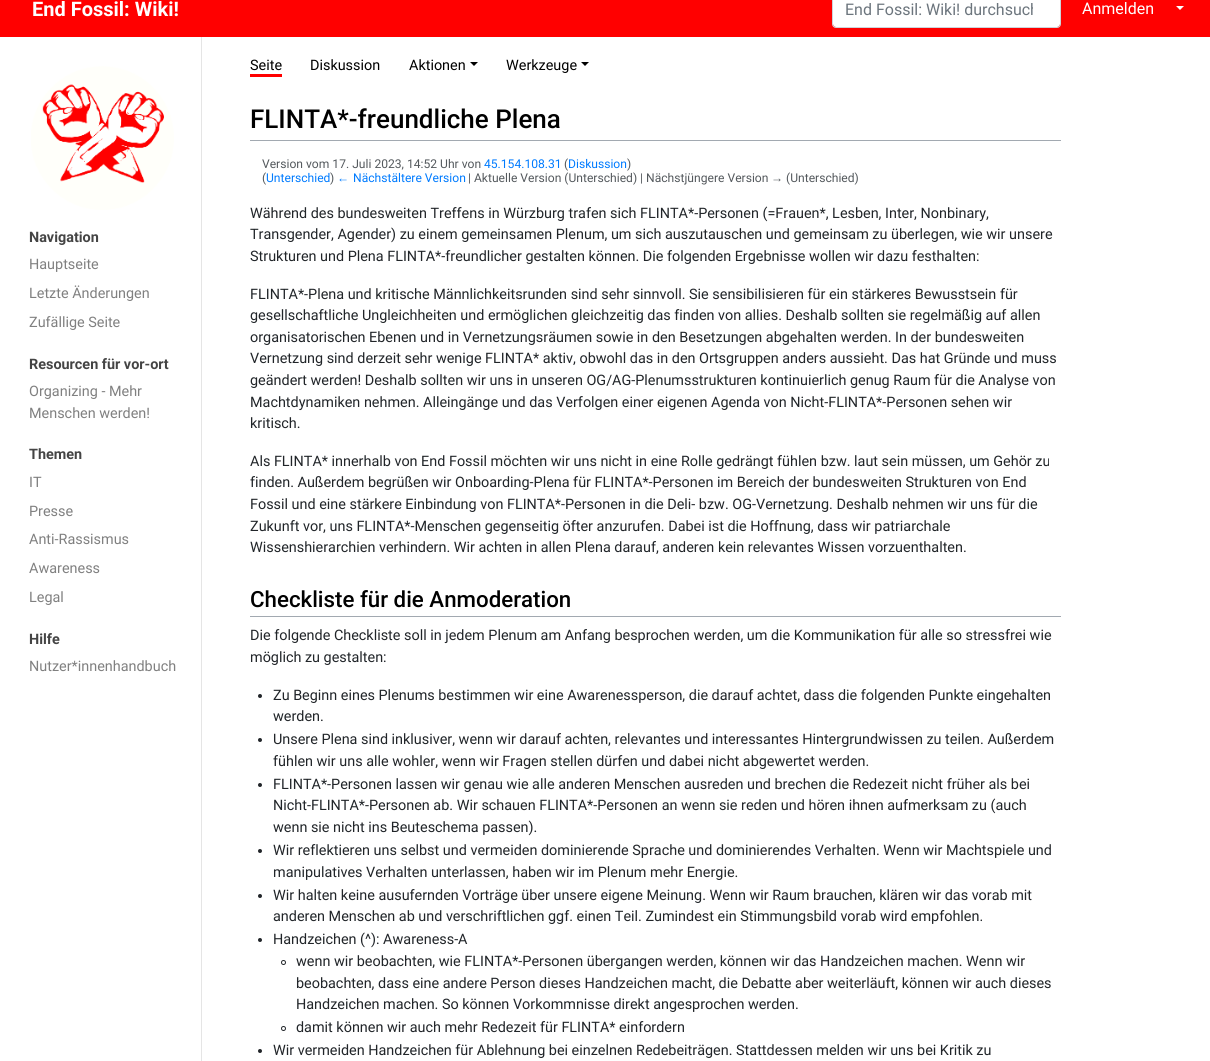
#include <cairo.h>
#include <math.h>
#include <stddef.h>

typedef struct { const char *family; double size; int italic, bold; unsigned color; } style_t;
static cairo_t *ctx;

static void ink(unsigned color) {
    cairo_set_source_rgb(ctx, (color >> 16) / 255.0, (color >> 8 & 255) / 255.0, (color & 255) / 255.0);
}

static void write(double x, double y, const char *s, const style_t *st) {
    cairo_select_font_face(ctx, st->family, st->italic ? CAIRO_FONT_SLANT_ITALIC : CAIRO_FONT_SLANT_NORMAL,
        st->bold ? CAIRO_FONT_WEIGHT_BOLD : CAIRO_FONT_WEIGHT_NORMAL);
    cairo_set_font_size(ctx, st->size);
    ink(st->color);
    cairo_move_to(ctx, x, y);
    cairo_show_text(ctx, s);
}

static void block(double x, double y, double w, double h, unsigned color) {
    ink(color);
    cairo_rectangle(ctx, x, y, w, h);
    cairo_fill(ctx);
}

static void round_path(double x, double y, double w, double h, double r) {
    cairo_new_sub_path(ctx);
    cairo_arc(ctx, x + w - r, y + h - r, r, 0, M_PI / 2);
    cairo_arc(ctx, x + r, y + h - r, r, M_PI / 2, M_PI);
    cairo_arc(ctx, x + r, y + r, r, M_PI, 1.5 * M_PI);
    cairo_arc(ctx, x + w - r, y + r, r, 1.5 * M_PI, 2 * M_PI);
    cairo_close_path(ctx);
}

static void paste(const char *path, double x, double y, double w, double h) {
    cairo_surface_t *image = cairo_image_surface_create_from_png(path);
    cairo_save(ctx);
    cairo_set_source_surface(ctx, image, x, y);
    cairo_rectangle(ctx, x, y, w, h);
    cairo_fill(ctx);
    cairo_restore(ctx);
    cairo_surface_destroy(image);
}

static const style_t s1 = {"Roboto", 20, 0, 1, 0xffffff};
static const style_t s2 = {"Roboto", 16, 0, 0, 0x6c757d};
static const style_t s3 = {"Roboto", 16, 0, 0, 0xffffff};
static const style_t s4 = {"Roboto", 14.4, 0, 1, 0x444444};
static const style_t s5 = {"Roboto", 14.4, 0, 0, 0x808080};
static const style_t s6 = {"Roboto", 14.4, 0, 0, 0x000000};
static const style_t s7 = {"Roboto Medium", 26, 0, 0, 0x000000};
static const style_t s8 = {"Roboto", 12.1, 0, 0, 0x54595d};
static const style_t s9 = {"Roboto", 12.1, 0, 0, 0x007bff};
static const style_t s10 = {"Liberation Sans", 12.1, 0, 0, 0x007bff};
static const style_t s11 = {"Liberation Sans", 12.1, 0, 0, 0x54595d};
static const style_t s12 = {"Roboto", 14.4, 0, 0, 0x212529};
static const style_t s13 = {"Roboto Medium", 22.3, 0, 0, 0x000000};

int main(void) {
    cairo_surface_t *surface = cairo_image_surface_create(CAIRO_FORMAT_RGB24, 1210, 1061);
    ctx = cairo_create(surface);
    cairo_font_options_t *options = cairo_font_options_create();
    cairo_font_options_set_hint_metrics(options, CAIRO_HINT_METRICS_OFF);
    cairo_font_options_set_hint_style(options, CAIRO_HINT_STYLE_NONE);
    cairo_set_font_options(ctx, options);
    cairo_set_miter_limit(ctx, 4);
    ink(0xffffff);
    cairo_paint(ctx);
    block(0, 0, 1210, 37, 0xff0000);
    write(32, 16, "End Fossil: Wiki!", &s1);
    round_path(833, -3, 227, 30, 3);
    cairo_fill(ctx);
    round_path(832.5, -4.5, 228, 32, 3.5);
    ink(0xced4da);
    cairo_set_line_width(ctx, 1);
    cairo_stroke(ctx);
    cairo_save(ctx);
    cairo_rectangle(ctx, 845, 0, 188, 19);
    cairo_clip(ctx);
    write(845, 15, "End Fossil: Wiki! durchsuch", &s2);
    cairo_restore(ctx);
    write(1082, 14, "Anmelden", &s3);
    cairo_new_path(ctx);
    cairo_move_to(ctx, 1176, 6);
    cairo_line_to(ctx, 1184, 6);
    cairo_line_to(ctx, 1180, 10);
    cairo_close_path(ctx);
    cairo_fill(ctx);
    block(201, 37, 1, 1024, 0xe5e5e5);
    paste("pic1.png", 31, 66, 143, 144);
    write(29, 242, "Navigation", &s4);
    write(29, 269, "Hauptseite", &s5);
    write(29, 298, "Letzte Änderungen", &s5);
    write(29, 327, "Zufällige Seite", &s5);
    write(29, 369, "Resourcen für vor-ort", &s4);
    write(29, 396, "Organizing - Mehr", &s5);
    write(29, 418, "Menschen werden!", &s5);
    write(29, 459, "Themen", &s4);
    write(29, 487, "IT", &s5);
    write(29, 516, "Presse", &s5);
    write(29, 544, "Anti-Rassismus", &s5);
    write(29, 573, "Awareness", &s5);
    write(29, 602, "Legal", &s5);
    write(29, 644, "Hilfe", &s4);
    write(29, 671, "Nutzer*innenhandbuch", &s5);
    write(250, 70, "Seite", &s6);
    block(250, 74, 32, 3, 0xff0000);
    write(310, 70, "Diskussion", &s6);
    write(409, 70, "Aktionen", &s6);
    cairo_new_path(ctx);
    cairo_move_to(ctx, 470, 62);
    cairo_line_to(ctx, 478, 62);
    cairo_line_to(ctx, 474, 66);
    cairo_close_path(ctx);
    cairo_fill(ctx);
    write(506, 70, "Werkzeuge", &s6);
    cairo_new_path(ctx);
    cairo_move_to(ctx, 581, 62);
    cairo_line_to(ctx, 589, 62);
    cairo_line_to(ctx, 585, 66);
    cairo_close_path(ctx);
    cairo_fill(ctx);
    block(250, 140, 811, 1, 0xa2a9b1);
    write(250, 128, "FLINTA*-freundliche Plena", &s7);
    write(262, 168, "Version vom 17. Juli 2023, 14:52 Uhr von", &s8);
    write(484, 168, "45.154.108.31", &s9);
    write(564, 168, "(", &s8);
    write(568, 168, "Diskussion", &s9);
    write(627, 168, ")", &s8);
    write(262, 182, "(", &s8);
    write(266, 182, "Unterschied", &s9);
    write(330, 182, ")", &s8);
    write(337, 182, "←", &s10);
    write(353, 182, "Nächstältere Version", &s9);
    write(468, 182, "| Aktuelle Version (Unterschied) | Nächstjüngere Version", &s8);
    write(771, 182, "→", &s11);
    write(786, 182, "(Unterschied)", &s8);
    write(250, 218, "Während des bundesweiten Treffens in Würzburg trafen sich FLINTA*-Personen (=Frauen*, Lesben, Inter, Nonbinary,", &s12);
    write(250, 239, "Transgender, Agender) zu einem gemeinsamen Plenum, um sich auszutauschen und gemeinsam zu überlegen, wie wir unsere", &s12);
    write(250, 261, "Strukturen und Plena FLINTA*-freundlicher gestalten können. Die folgenden Ergebnisse wollen wir dazu festhalten:", &s12);
    write(250, 299, "FLINTA*-Plena und kritische Männlichkeitsrunden sind sehr sinnvoll. Sie sensibilisieren für ein stärkeres Bewusstsein für", &s12);
    write(250, 320, "gesellschaftliche Ungleichheiten und ermöglichen gleichzeitig das finden von allies. Deshalb sollten sie regelmäßig auf allen", &s12);
    write(250, 342, "organisatorischen Ebenen und in Vernetzungsräumen sowie in den Besetzungen abgehalten werden. In der bundesweiten", &s12);
    write(250, 363, "Vernetzung sind derzeit sehr wenige FLINTA* aktiv, obwohl das in den Ortsgruppen anders aussieht. Das hat Gründe und muss", &s12);
    write(250, 385, "geändert werden! Deshalb sollten wir uns in unseren OG/AG-Plenumsstrukturen kontinuierlich genug Raum für die Analyse von", &s12);
    write(250, 407, "Machtdynamiken nehmen. Alleingänge und das Verfolgen einer eigenen Agenda von Nicht-FLINTA*-Personen sehen wir", &s12);
    write(250, 428, "kritisch.", &s12);
    write(250, 466, "Als FLINTA* innerhalb von End Fossil möchten wir uns nicht in eine Rolle gedrängt fühlen bzw. laut sein müssen, um Gehör zu", &s12);
    write(250, 487, "finden. Außerdem begrüßen wir Onboarding-Plena für FLINTA*-Personen im Bereich der bundesweiten Strukturen von End", &s12);
    write(250, 509, "Fossil und eine stärkere Einbindung von FLINTA*-Personen in die Deli- bzw. OG-Vernetzung. Deshalb nehmen wir uns für die", &s12);
    write(250, 531, "Zukunft vor, uns FLINTA*-Menschen gegenseitig öfter anzurufen. Dabei ist die Hoffnung, dass wir patriarchale", &s12);
    write(250, 552, "Wissenshierarchien verhindern. Wir achten in allen Plena darauf, anderen kein relevantes Wissen vorzuenthalten.", &s12);
    block(250, 616, 811, 1, 0xa2a9b1);
    write(250, 607, "Checkliste für die Anmoderation", &s13);
    write(250, 640, "Die folgende Checkliste soll in jedem Plenum am Anfang besprochen werden, um die Kommunikation für alle so stressfrei wie", &s12);
    write(250, 662, "möglich zu gestalten:", &s12);
    cairo_new_path(ctx);
    cairo_arc(ctx, 260, 696, 2, 0, 2 * M_PI);
    cairo_fill(ctx);
    write(273, 700, "Zu Beginn eines Plenums bestimmen wir eine Awarenessperson, die darauf achtet, dass die folgenden Punkte eingehalten", &s12);
    write(273, 721, "werden.", &s12);
    cairo_new_path(ctx);
    cairo_arc(ctx, 260, 740, 2, 0, 2 * M_PI);
    cairo_fill(ctx);
    write(273, 744, "Unsere Plena sind inklusiver, wenn wir darauf achten, relevantes und interessantes Hintergrundwissen zu teilen. Außerdem", &s12);
    write(273, 766, "fühlen wir uns alle wohler, wenn wir Fragen stellen dürfen und dabei nicht abgewertet werden.", &s12);
    cairo_new_path(ctx);
    cairo_arc(ctx, 260, 785, 2, 0, 2 * M_PI);
    cairo_fill(ctx);
    write(273, 789, "FLINTA*-Personen lassen wir genau wie alle anderen Menschen ausreden und brechen die Redezeit nicht früher als bei", &s12);
    write(273, 810, "Nicht-FLINTA*-Personen ab. Wir schauen FLINTA*-Personen an wenn sie reden und hören ihnen aufmerksam zu (auch", &s12);
    write(273, 832, "wenn sie nicht ins Beuteschema passen).", &s12);
    cairo_new_path(ctx);
    cairo_arc(ctx, 260, 851, 2, 0, 2 * M_PI);
    cairo_fill(ctx);
    write(273, 855, "Wir reflektieren uns selbst und vermeiden dominierende Sprache und dominierendes Verhalten. Wenn wir Machtspiele und", &s12);
    write(273, 877, "manipulatives Verhalten unterlassen, haben wir im Plenum mehr Energie.", &s12);
    cairo_new_path(ctx);
    cairo_arc(ctx, 260, 896, 2, 0, 2 * M_PI);
    cairo_fill(ctx);
    write(273, 900, "Wir halten keine ausufernden Vorträge über unsere eigene Meinung. Wenn wir Raum brauchen, klären wir das vorab mit", &s12);
    write(273, 921, "anderen Menschen ab und verschriftlichen ggf. einen Teil. Zumindest ein Stimmungsbild vorab wird empfohlen.", &s12);
    cairo_new_path(ctx);
    cairo_arc(ctx, 260, 940, 2, 0, 2 * M_PI);
    cairo_fill(ctx);
    write(273, 944, "Handzeichen (^): Awareness-A", &s12);
    cairo_new_path(ctx);
    cairo_arc(ctx, 283.5, 962.5, 2, 0, 2 * M_PI);
    cairo_stroke(ctx);
    write(296, 966, "wenn wir beobachten, wie FLINTA*-Personen übergangen werden, können wir das Handzeichen machen. Wenn wir", &s12);
    write(296, 988, "beobachten, dass eine andere Person dieses Handzeichen macht, die Debatte aber weiterläuft, können wir auch dieses", &s12);
    write(296, 1009, "Handzeichen machen. So können Vorkommnisse direkt angesprochen werden.", &s12);
    cairo_new_path(ctx);
    cairo_arc(ctx, 283.5, 1028.5, 2, 0, 2 * M_PI);
    cairo_stroke(ctx);
    write(296, 1032, "damit können wir auch mehr Redezeit für FLINTA* einfordern", &s12);
    cairo_new_path(ctx);
    cairo_arc(ctx, 260, 1051, 2, 0, 2 * M_PI);
    cairo_fill(ctx);
    write(273, 1055, "Wir vermeiden Handzeichen für Ablehnung bei einzelnen Redebeiträgen. Stattdessen melden wir uns bei Kritik zu", &s12);
    cairo_surface_write_to_png(surface, "screenshot.png");
    cairo_font_options_destroy(options);
    cairo_destroy(ctx);
    cairo_surface_destroy(surface);
    return 0;
}
